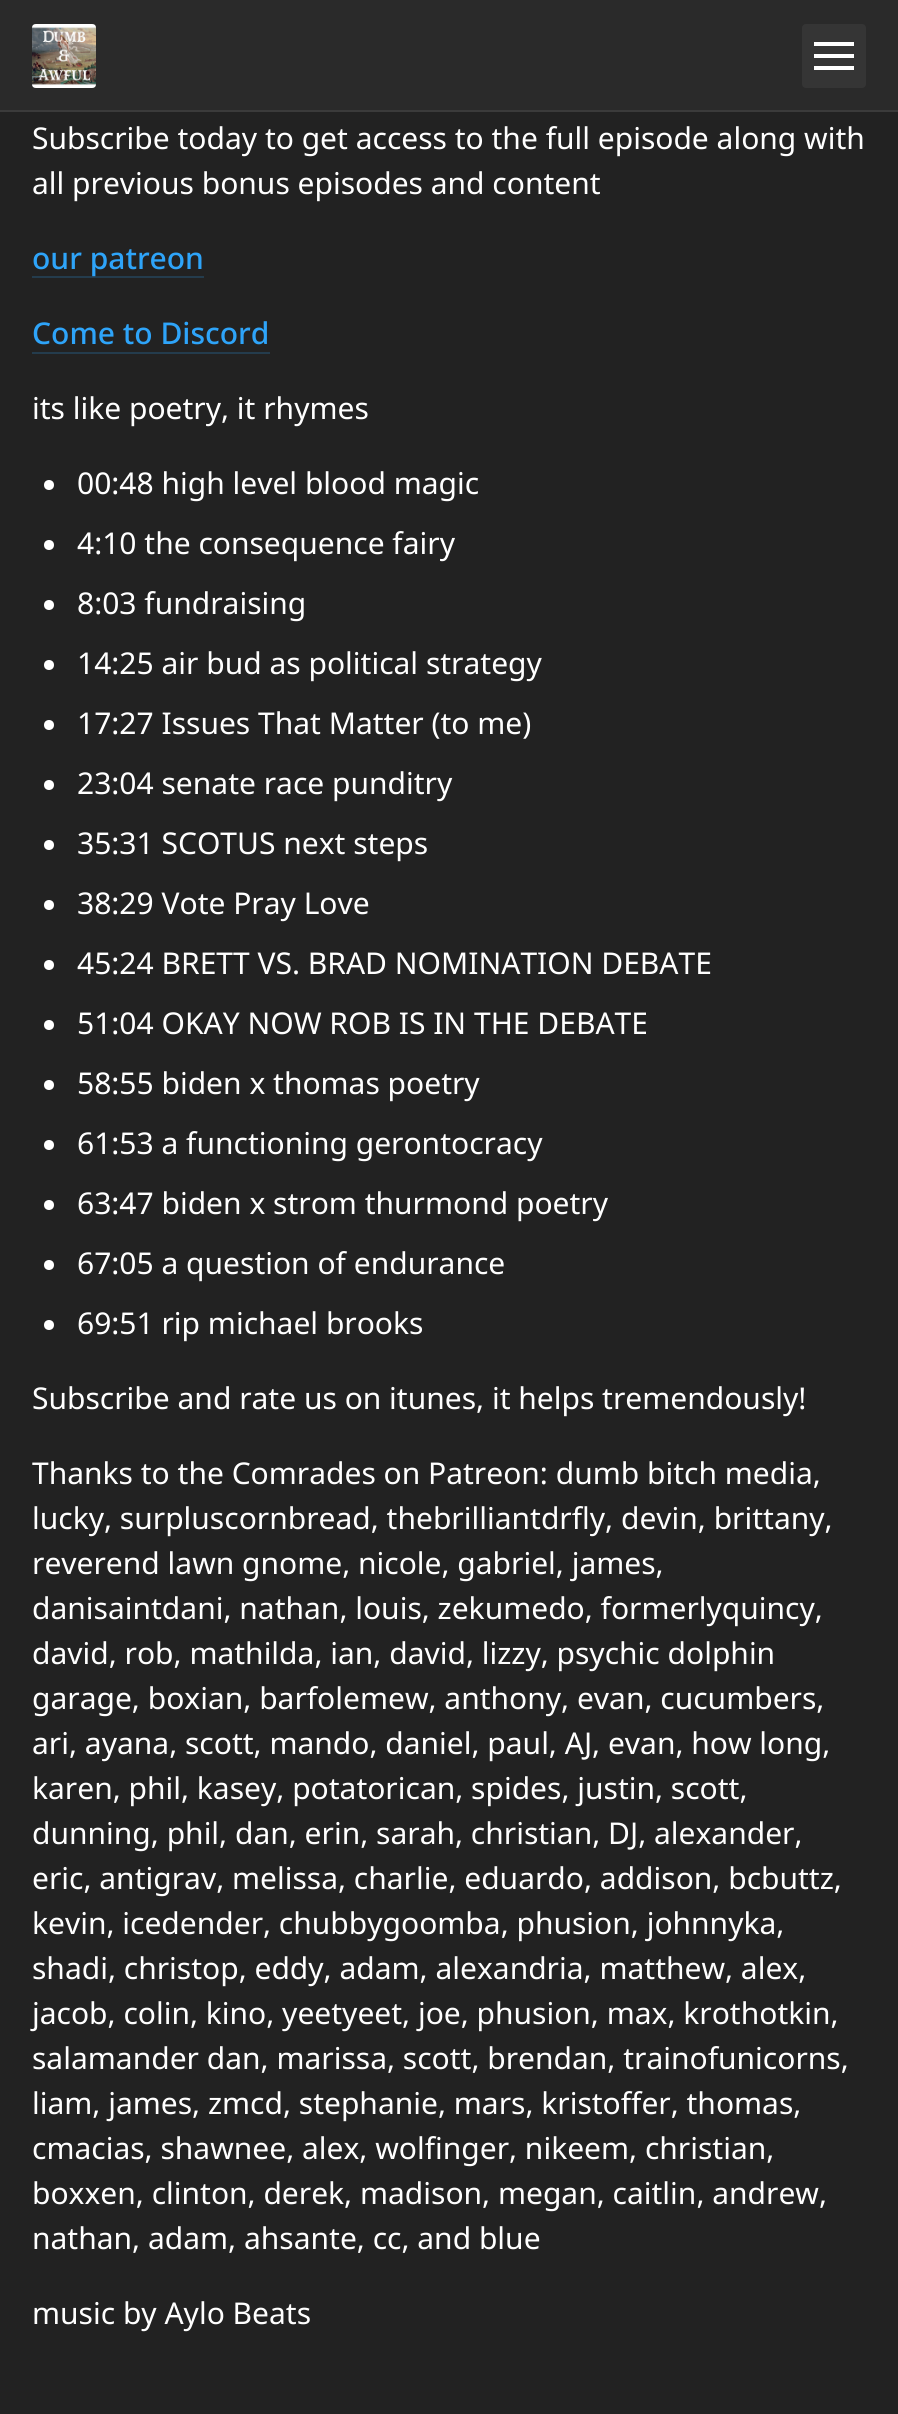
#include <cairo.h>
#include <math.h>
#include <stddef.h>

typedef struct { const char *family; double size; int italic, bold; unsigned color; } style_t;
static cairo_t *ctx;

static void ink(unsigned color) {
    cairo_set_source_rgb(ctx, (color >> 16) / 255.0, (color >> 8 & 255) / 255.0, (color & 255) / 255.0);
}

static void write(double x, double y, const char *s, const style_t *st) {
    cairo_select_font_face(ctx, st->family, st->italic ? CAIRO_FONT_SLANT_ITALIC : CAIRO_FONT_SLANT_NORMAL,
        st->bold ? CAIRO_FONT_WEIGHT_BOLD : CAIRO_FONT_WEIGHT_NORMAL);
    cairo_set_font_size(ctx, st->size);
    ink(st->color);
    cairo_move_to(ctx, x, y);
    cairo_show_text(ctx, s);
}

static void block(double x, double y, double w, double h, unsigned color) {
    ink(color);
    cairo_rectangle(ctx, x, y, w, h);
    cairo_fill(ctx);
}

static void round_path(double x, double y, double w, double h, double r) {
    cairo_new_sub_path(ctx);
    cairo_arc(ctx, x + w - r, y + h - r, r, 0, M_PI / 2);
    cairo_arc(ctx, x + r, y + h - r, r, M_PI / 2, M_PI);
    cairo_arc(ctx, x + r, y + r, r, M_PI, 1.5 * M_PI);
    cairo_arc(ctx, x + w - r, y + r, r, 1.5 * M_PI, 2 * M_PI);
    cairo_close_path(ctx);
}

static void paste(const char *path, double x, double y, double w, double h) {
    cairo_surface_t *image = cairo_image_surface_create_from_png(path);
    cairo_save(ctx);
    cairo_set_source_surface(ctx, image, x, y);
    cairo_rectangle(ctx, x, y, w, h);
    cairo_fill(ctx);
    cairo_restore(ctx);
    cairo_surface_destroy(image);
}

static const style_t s1 = {"Noto Sans", 30, 0, 0, 0xffffff};
static const style_t s2 = {"Noto Sans Medium", 30, 0, 0, 0x2ea4f9};

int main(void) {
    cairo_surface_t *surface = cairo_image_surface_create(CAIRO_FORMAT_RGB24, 898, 2414);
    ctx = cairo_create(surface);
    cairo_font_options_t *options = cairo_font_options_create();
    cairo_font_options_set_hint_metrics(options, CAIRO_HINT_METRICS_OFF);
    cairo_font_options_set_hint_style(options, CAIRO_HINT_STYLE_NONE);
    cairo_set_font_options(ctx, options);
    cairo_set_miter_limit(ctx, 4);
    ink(0x222222);
    cairo_paint(ctx);
    block(0, 0, 898, 110, 0x2a2a2a);
    block(0, 110, 898, 2, 0x3b3b3b);
    paste("pic1.png", 32, 24, 64, 64);
    ink(0x353535);
    round_path(802, 24, 64, 64, 4);
    cairo_fill(ctx);
    block(814, 42, 40, 4, 0xffffff);
    block(814, 54, 40, 4, 0xffffff);
    block(814, 66, 40, 4, 0xffffff);
    write(32, 149, "Subscribe today to get access to the full episode along with", &s1);
    write(32, 194, "all previous bonus episodes and content", &s1);
    block(32, 276, 172, 2, 0x243c4d);
    write(32, 269, "our patreon", &s2);
    write(32, 344, "Come to Discord", &s2);
    block(32, 352, 238, 2, 0x243c4d);
    write(32, 419, "its like poetry, it rhymes", &s1);
    cairo_new_path(ctx);
    cairo_arc(ctx, 49, 485, 5, 0, 2 * M_PI);
    cairo_fill(ctx);
    write(77, 494, "00:48 high level blood magic", &s1);
    cairo_new_path(ctx);
    cairo_arc(ctx, 49, 545, 5, 0, 2 * M_PI);
    cairo_fill(ctx);
    write(77, 554, "4:10 the consequence fairy", &s1);
    cairo_new_path(ctx);
    cairo_arc(ctx, 49, 605, 5, 0, 2 * M_PI);
    cairo_fill(ctx);
    write(77, 614, "8:03 fundraising", &s1);
    cairo_new_path(ctx);
    cairo_arc(ctx, 49, 665, 5, 0, 2 * M_PI);
    cairo_fill(ctx);
    write(77, 674, "14:25 air bud as political strategy", &s1);
    cairo_new_path(ctx);
    cairo_arc(ctx, 49, 725, 5, 0, 2 * M_PI);
    cairo_fill(ctx);
    write(77, 734, "17:27 Issues That Matter (to me)", &s1);
    cairo_new_path(ctx);
    cairo_arc(ctx, 49, 785, 5, 0, 2 * M_PI);
    cairo_fill(ctx);
    write(77, 794, "23:04 senate race punditry", &s1);
    cairo_new_path(ctx);
    cairo_arc(ctx, 49, 845, 5, 0, 2 * M_PI);
    cairo_fill(ctx);
    write(77, 854, "35:31 SCOTUS next steps", &s1);
    cairo_new_path(ctx);
    cairo_arc(ctx, 49, 905, 5, 0, 2 * M_PI);
    cairo_fill(ctx);
    write(77, 914, "38:29 Vote Pray Love", &s1);
    cairo_new_path(ctx);
    cairo_arc(ctx, 49, 965, 5, 0, 2 * M_PI);
    cairo_fill(ctx);
    write(77, 974, "45:24 BRETT VS. BRAD NOMINATION DEBATE", &s1);
    cairo_new_path(ctx);
    cairo_arc(ctx, 49, 1025, 5, 0, 2 * M_PI);
    cairo_fill(ctx);
    write(77, 1034, "51:04 OKAY NOW ROB IS IN THE DEBATE", &s1);
    cairo_new_path(ctx);
    cairo_arc(ctx, 49, 1085, 5, 0, 2 * M_PI);
    cairo_fill(ctx);
    write(77, 1094, "58:55 biden x thomas poetry", &s1);
    cairo_new_path(ctx);
    cairo_arc(ctx, 49, 1145, 5, 0, 2 * M_PI);
    cairo_fill(ctx);
    write(77, 1154, "61:53 a functioning gerontocracy", &s1);
    cairo_new_path(ctx);
    cairo_arc(ctx, 49, 1205, 5, 0, 2 * M_PI);
    cairo_fill(ctx);
    write(77, 1214, "63:47 biden x strom thurmond poetry", &s1);
    cairo_new_path(ctx);
    cairo_arc(ctx, 49, 1265, 5, 0, 2 * M_PI);
    cairo_fill(ctx);
    write(77, 1274, "67:05 a question of endurance", &s1);
    cairo_new_path(ctx);
    cairo_arc(ctx, 49, 1325, 5, 0, 2 * M_PI);
    cairo_fill(ctx);
    write(77, 1334, "69:51 rip michael brooks", &s1);
    write(32, 1409, "Subscribe and rate us on itunes, it helps tremendously!", &s1);
    write(32, 1484, "Thanks to the Comrades on Patreon: dumb bitch media,", &s1);
    write(32, 1529, "lucky, surpluscornbread, thebrilliantdrfly, devin, brittany,", &s1);
    write(32, 1574, "reverend lawn gnome, nicole, gabriel, james,", &s1);
    write(32, 1619, "danisaintdani, nathan, louis, zekumedo, formerlyquincy,", &s1);
    write(32, 1664, "david, rob, mathilda, ian, david, lizzy, psychic dolphin", &s1);
    write(32, 1709, "garage, boxian, barfolemew, anthony, evan, cucumbers,", &s1);
    write(32, 1754, "ari, ayana, scott, mando, daniel, paul, AJ, evan, how long,", &s1);
    write(32, 1799, "karen, phil, kasey, potatorican, spides, justin, scott,", &s1);
    write(32, 1844, "dunning, phil, dan, erin, sarah, christian, DJ, alexander,", &s1);
    write(32, 1889, "eric, antigrav, melissa, charlie, eduardo, addison, bcbuttz,", &s1);
    write(32, 1934, "kevin, icedender, chubbygoomba, phusion, johnnyka,", &s1);
    write(32, 1979, "shadi, christop, eddy, adam, alexandria, matthew, alex,", &s1);
    write(32, 2024, "jacob, colin, kino, yeetyeet, joe, phusion, max, krothotkin,", &s1);
    write(32, 2069, "salamander dan, marissa, scott, brendan, trainofunicorns,", &s1);
    write(32, 2114, "liam, james, zmcd, stephanie, mars, kristoffer, thomas,", &s1);
    write(32, 2159, "cmacias, shawnee, alex, wolfinger, nikeem, christian,", &s1);
    write(32, 2204, "boxxen, clinton, derek, madison, megan, caitlin, andrew,", &s1);
    write(32, 2249, "nathan, adam, ahsante, cc, and blue", &s1);
    write(32, 2324, "music by Aylo Beats", &s1);
    cairo_surface_write_to_png(surface, "screenshot.png");
    cairo_font_options_destroy(options);
    cairo_destroy(ctx);
    cairo_surface_destroy(surface);
    return 0;
}
